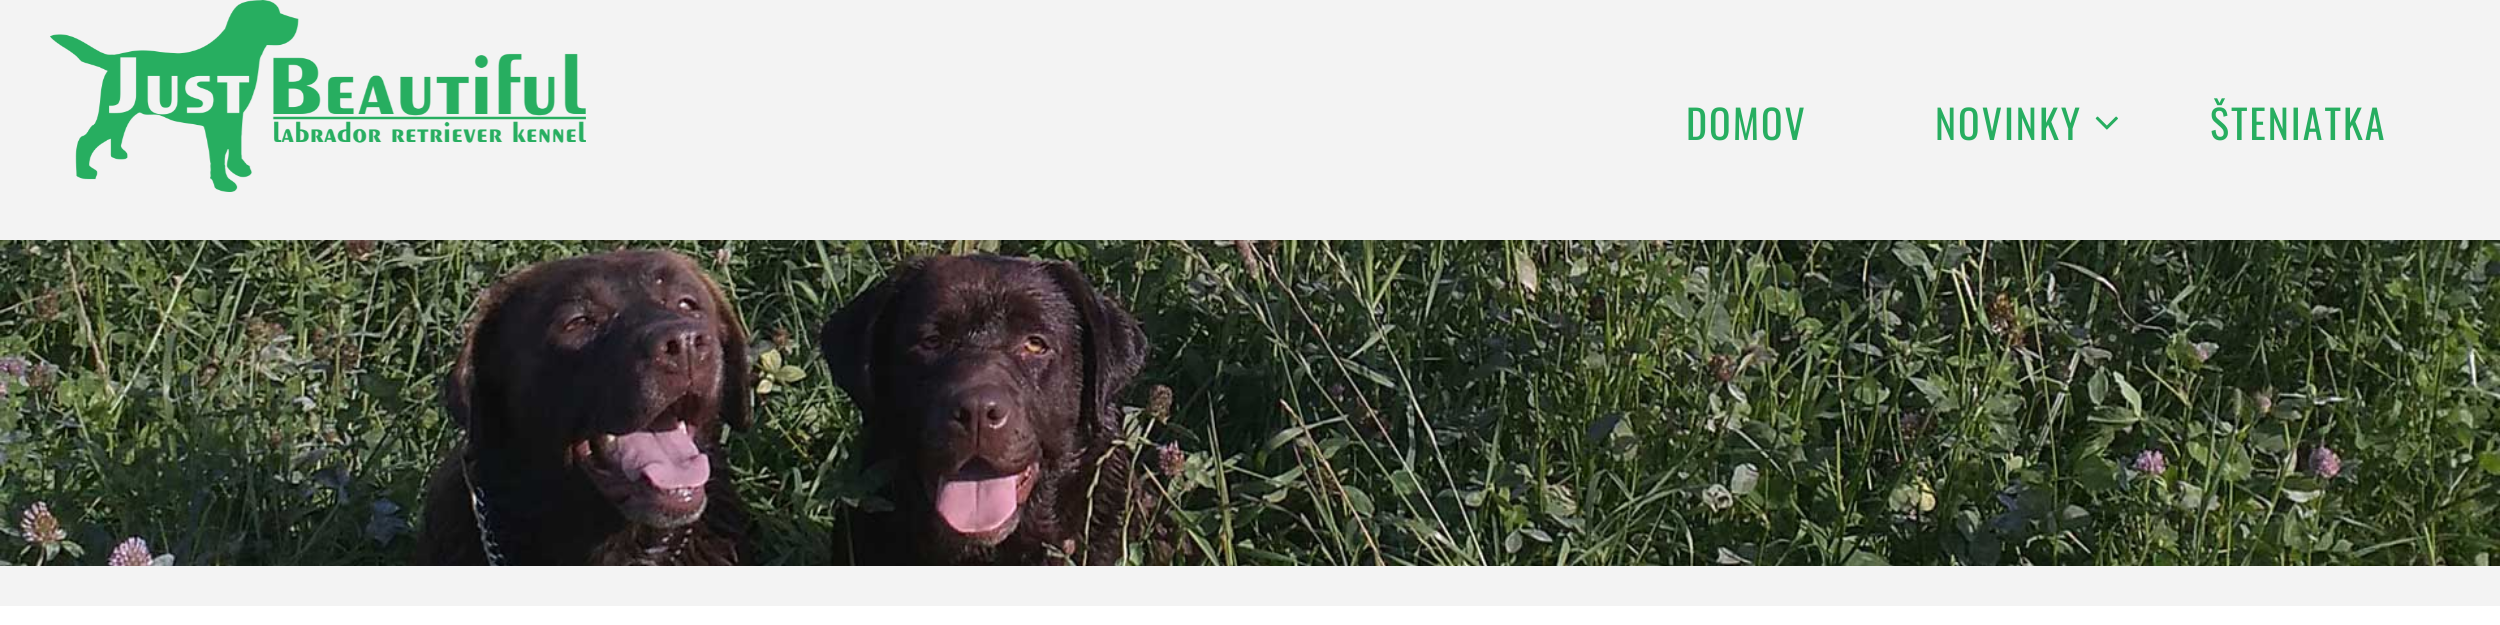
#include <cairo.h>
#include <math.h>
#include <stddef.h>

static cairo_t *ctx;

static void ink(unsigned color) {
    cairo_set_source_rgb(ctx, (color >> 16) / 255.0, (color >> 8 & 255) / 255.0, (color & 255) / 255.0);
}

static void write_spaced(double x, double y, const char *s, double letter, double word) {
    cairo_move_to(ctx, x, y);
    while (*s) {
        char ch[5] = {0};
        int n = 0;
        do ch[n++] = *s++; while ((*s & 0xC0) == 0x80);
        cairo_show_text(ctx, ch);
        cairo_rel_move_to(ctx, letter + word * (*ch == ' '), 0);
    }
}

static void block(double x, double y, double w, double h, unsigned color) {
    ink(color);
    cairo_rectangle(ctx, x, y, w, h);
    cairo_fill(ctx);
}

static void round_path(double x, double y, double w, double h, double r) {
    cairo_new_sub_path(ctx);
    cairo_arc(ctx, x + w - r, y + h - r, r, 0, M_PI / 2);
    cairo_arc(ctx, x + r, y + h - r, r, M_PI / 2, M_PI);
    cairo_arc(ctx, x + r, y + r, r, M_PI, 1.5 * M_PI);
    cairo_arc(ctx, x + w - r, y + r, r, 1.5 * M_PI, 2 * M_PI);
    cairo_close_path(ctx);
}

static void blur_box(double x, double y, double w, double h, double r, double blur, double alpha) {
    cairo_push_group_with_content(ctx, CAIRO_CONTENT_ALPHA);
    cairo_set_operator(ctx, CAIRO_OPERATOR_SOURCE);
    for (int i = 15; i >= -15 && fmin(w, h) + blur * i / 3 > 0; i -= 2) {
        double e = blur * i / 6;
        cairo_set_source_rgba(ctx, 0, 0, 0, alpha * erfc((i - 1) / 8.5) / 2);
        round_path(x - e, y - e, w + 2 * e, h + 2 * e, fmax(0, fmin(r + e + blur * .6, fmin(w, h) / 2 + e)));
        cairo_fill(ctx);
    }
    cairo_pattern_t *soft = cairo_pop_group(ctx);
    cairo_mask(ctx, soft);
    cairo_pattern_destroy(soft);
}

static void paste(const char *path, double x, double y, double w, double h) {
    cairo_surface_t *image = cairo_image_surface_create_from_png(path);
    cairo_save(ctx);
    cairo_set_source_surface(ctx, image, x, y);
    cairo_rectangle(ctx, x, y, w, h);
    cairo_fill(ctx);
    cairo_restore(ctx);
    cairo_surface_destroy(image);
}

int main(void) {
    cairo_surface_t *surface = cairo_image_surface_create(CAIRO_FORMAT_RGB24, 2500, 625);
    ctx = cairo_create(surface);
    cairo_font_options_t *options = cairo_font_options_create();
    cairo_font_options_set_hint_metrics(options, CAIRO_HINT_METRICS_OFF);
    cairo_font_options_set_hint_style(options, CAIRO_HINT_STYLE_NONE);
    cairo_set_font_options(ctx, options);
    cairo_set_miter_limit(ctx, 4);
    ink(0xf3f3f3);
    cairo_paint(ctx);
    paste("pic3.png", 0, 240, 2500, 326);
    cairo_save(ctx);
    cairo_rectangle(ctx, 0, 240, 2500, 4);
    cairo_clip(ctx);
    ink(0x000000);
    blur_box(0, 0, 2500, 240, 0, 3, 0.2);
    cairo_restore(ctx);
    paste("pic1.png", 50, 0, 536, 192);
    cairo_select_font_face(ctx, "Oswald", CAIRO_FONT_SLANT_NORMAL, CAIRO_FONT_WEIGHT_NORMAL);
    cairo_set_font_size(ctx, 40);
    ink(0x27ae60);
    write_spaced(1686, 140, "DOMOV", 2, 0);
    write_spaced(1935, 140, "NOVINKY", 2, 0);
    paste("pic2.png", 2095, 116, 23, 14);
    write_spaced(2210, 140, "ŠTENIATKA", 2, 0);
    block(0, 606, 2500, 19, 0xffffff);
    cairo_surface_write_to_png(surface, "screenshot.png");
    cairo_font_options_destroy(options);
    cairo_destroy(ctx);
    cairo_surface_destroy(surface);
    return 0;
}
